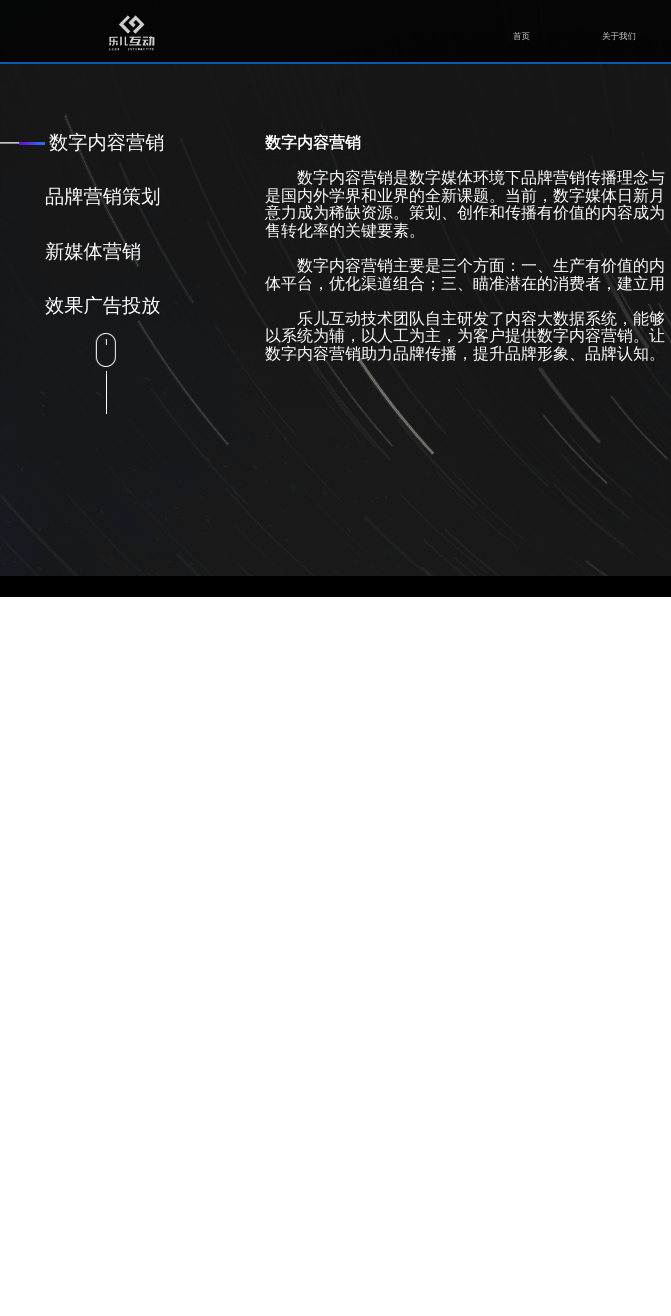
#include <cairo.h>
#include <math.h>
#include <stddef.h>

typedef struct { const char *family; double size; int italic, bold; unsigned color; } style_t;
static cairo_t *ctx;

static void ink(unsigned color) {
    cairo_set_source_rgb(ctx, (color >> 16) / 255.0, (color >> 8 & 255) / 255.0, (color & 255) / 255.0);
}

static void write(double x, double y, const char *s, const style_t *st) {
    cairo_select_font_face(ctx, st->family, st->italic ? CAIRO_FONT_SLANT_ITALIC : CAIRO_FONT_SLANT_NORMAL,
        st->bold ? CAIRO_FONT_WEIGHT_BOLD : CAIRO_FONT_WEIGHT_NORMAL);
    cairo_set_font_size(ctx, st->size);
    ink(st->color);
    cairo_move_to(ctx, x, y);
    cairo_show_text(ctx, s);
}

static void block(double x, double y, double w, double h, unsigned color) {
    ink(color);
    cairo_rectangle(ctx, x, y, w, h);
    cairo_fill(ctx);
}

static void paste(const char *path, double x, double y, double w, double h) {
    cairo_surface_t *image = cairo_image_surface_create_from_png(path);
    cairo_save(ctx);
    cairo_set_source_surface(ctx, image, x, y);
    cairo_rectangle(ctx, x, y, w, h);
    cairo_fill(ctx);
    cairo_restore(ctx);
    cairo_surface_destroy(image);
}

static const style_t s1 = {"WenQuanYi Zen Hei Medium", 8.5, 0, 0, 0xd1d1d1};
static const style_t s2 = {"WenQuanYi Zen Hei Medium", 19.25, 0, 0, 0xffffff};
static const style_t s3 = {"WenQuanYi Zen Hei", 16, 0, 1, 0xffffff};
static const style_t s4 = {"WenQuanYi Zen Hei Medium", 16, 0, 0, 0xffffff};

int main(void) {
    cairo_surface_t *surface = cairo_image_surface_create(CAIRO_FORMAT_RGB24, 671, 1316);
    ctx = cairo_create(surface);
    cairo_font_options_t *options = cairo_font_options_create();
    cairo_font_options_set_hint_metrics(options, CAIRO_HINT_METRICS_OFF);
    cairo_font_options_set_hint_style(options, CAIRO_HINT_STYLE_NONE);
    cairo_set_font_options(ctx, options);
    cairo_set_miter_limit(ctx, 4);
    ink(0xffffff);
    cairo_paint(ctx);
    paste("pic2.png", 0, 0, 671, 576);
    cairo_set_source_rgba(ctx, 0, 0, 0, 0.8);
    cairo_rectangle(ctx, 0, 0, 671, 62);
    cairo_fill(ctx);
    block(0, 62, 671, 2, 0x085ba7);
    paste("pic1.png", 109, 15, 46, 36);
    write(513, 39, "首页", &s1);
    write(602, 39, "关于我们", &s1);
    paste("pic3.png", 0, 142, 45, 3);
    write(49, 149, "数字内容营销", &s2);
    write(45, 203, "品牌营销策划", &s2);
    write(45, 258, "新媒体营销", &s2);
    write(45, 312, "效果广告投放", &s2);
    paste("pic4.png", 95, 333, 21, 34);
    block(106, 371, 1, 43, 0xffffff);
    write(265, 148, "数字内容营销", &s3);
    write(297, 183, "数字内容营销是数字媒体环境下品牌营销传播理念与", &s4);
    write(265, 201, "是国内外学界和业界的全新课题。当前，数字媒体日新月", &s4);
    write(265, 218, "意力成为稀缺资源。策划、创作和传播有价值的内容成为", &s4);
    write(265, 236, "售转化率的关键要素。", &s4);
    write(297, 271, "数字内容营销主要是三个方面：一、生产有价值的内", &s4);
    write(265, 289, "体平台，优化渠道组合；三、瞄准潜在的消费者，建立用", &s4);
    write(297, 324, "乐儿互动技术团队自主研发了内容大数据系统，能够", &s4);
    write(265, 341, "以系统为辅，以人工为主，为客户提供数字内容营销。让", &s4);
    write(265, 359, "数字内容营销助力品牌传播，提升品牌形象、品牌认知。", &s4);
    block(0, 576, 671, 21, 0x000000);
    cairo_surface_write_to_png(surface, "screenshot.png");
    cairo_font_options_destroy(options);
    cairo_destroy(ctx);
    cairo_surface_destroy(surface);
    return 0;
}
